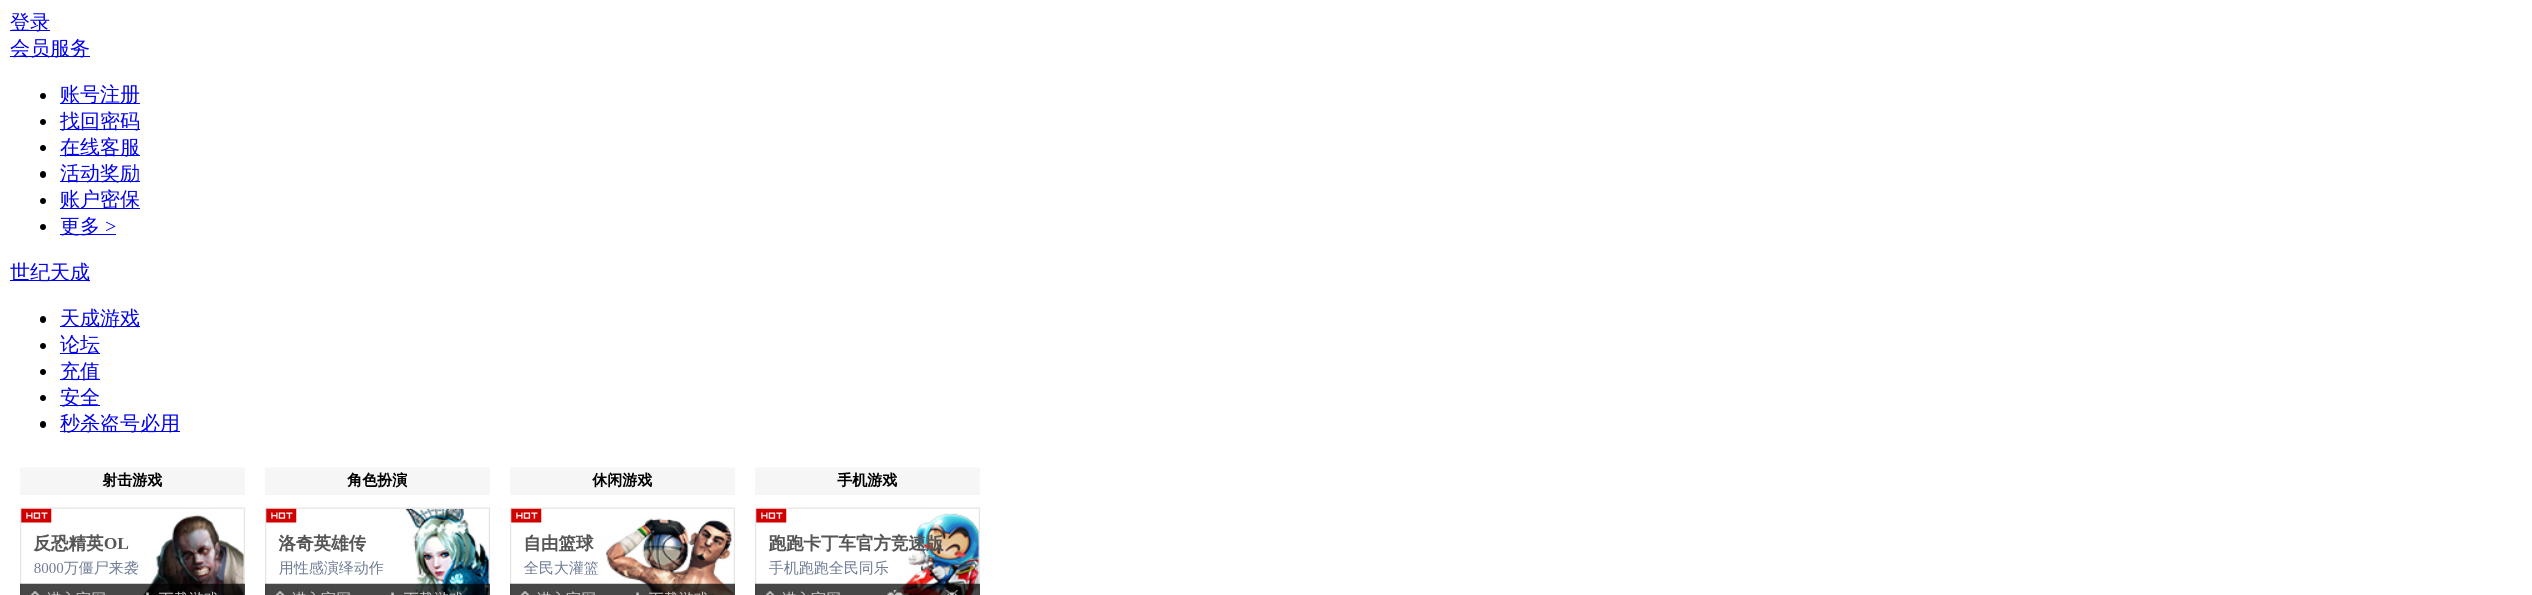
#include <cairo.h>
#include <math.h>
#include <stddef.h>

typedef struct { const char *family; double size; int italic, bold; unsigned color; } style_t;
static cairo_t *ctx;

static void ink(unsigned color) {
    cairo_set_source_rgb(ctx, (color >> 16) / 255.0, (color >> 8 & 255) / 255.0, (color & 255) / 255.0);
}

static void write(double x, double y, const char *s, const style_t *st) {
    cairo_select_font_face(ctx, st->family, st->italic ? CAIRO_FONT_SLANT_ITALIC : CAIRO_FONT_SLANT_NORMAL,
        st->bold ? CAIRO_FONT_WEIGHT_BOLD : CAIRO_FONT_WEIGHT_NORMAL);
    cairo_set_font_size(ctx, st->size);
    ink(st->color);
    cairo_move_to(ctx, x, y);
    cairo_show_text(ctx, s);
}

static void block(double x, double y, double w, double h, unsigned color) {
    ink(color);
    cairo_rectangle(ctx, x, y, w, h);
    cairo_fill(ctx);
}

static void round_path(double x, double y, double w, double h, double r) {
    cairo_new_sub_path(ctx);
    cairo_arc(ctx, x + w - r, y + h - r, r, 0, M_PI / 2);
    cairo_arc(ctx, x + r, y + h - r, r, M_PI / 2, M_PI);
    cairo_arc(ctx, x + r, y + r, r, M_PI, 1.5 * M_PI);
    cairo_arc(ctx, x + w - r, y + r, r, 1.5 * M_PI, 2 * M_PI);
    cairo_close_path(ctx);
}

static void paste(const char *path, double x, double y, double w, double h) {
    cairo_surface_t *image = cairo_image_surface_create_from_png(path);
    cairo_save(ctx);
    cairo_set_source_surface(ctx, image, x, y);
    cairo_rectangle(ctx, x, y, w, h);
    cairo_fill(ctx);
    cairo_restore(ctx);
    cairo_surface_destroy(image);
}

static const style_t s1 = {"WenQuanYi Zen Hei Medium", 20, 0, 0, 0x0000ee};
static const style_t s2 = {"Liberation Serif", 20, 0, 0, 0x0000ee};

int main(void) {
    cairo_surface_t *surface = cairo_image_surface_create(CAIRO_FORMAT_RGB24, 2532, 595);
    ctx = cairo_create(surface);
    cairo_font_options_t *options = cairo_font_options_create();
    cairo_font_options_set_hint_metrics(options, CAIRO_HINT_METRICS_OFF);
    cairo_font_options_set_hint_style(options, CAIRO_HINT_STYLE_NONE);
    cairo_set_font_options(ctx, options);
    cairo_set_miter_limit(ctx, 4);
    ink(0xffffff);
    cairo_paint(ctx);
    block(10, 30, 40, 1, 0x0000ee);
    write(10, 29, "登录", &s1);
    block(10, 56, 80, 1, 0x0000ee);
    write(10, 55, "会员服务", &s1);
    ink(0x000000);
    cairo_new_path(ctx);
    cairo_arc(ctx, 43, 96, 3, 0, 2 * M_PI);
    cairo_fill(ctx);
    block(60, 103, 80, 1, 0x0000ee);
    write(60, 101, "账号注册", &s1);
    ink(0x000000);
    cairo_new_path(ctx);
    cairo_arc(ctx, 43, 122, 3, 0, 2 * M_PI);
    cairo_fill(ctx);
    block(60, 129, 80, 1, 0x0000ee);
    write(60, 128, "找回密码", &s1);
    ink(0x000000);
    cairo_new_path(ctx);
    cairo_arc(ctx, 43, 148, 3, 0, 2 * M_PI);
    cairo_fill(ctx);
    block(60, 155, 80, 1, 0x0000ee);
    write(60, 154, "在线客服", &s1);
    ink(0x000000);
    round_path(40, 171, 6, 7, 3);
    cairo_fill(ctx);
    block(60, 181, 80, 1, 0x0000ee);
    write(60, 180, "活动奖励", &s1);
    ink(0x000000);
    cairo_new_path(ctx);
    cairo_arc(ctx, 43, 201, 3, 0, 2 * M_PI);
    cairo_fill(ctx);
    block(60, 208, 80, 1, 0x0000ee);
    write(60, 206, "账户密保", &s1);
    ink(0x000000);
    cairo_new_path(ctx);
    cairo_arc(ctx, 43, 227, 3, 0, 2 * M_PI);
    cairo_fill(ctx);
    block(60, 234, 56, 1, 0x0000ee);
    write(60, 233, "更多", &s1);
    write(105, 233, ">", &s2);
    block(10, 280, 80, 1, 0x0000ee);
    write(10, 279, "世纪天成", &s1);
    ink(0x000000);
    round_path(40, 316, 6, 7, 3);
    cairo_fill(ctx);
    block(60, 326, 80, 1, 0x0000ee);
    write(60, 325, "天成游戏", &s1);
    ink(0x000000);
    cairo_new_path(ctx);
    cairo_arc(ctx, 43, 346, 3, 0, 2 * M_PI);
    cairo_fill(ctx);
    block(60, 353, 40, 1, 0x0000ee);
    write(60, 351, "论坛", &s1);
    ink(0x000000);
    cairo_new_path(ctx);
    cairo_arc(ctx, 43, 372, 3, 0, 2 * M_PI);
    cairo_fill(ctx);
    block(60, 379, 40, 1, 0x0000ee);
    write(60, 378, "充值", &s1);
    ink(0x000000);
    cairo_new_path(ctx);
    cairo_arc(ctx, 43, 398, 3, 0, 2 * M_PI);
    cairo_fill(ctx);
    block(60, 405, 40, 1, 0x0000ee);
    write(60, 404, "安全", &s1);
    ink(0x000000);
    round_path(40, 421, 6, 7, 3);
    cairo_fill(ctx);
    block(60, 431, 120, 1, 0x0000ee);
    write(60, 430, "秒杀盗号必用", &s1);
    paste("pic1.png", 20, 467, 960, 128);
    cairo_surface_write_to_png(surface, "screenshot.png");
    cairo_font_options_destroy(options);
    cairo_destroy(ctx);
    cairo_surface_destroy(surface);
    return 0;
}
